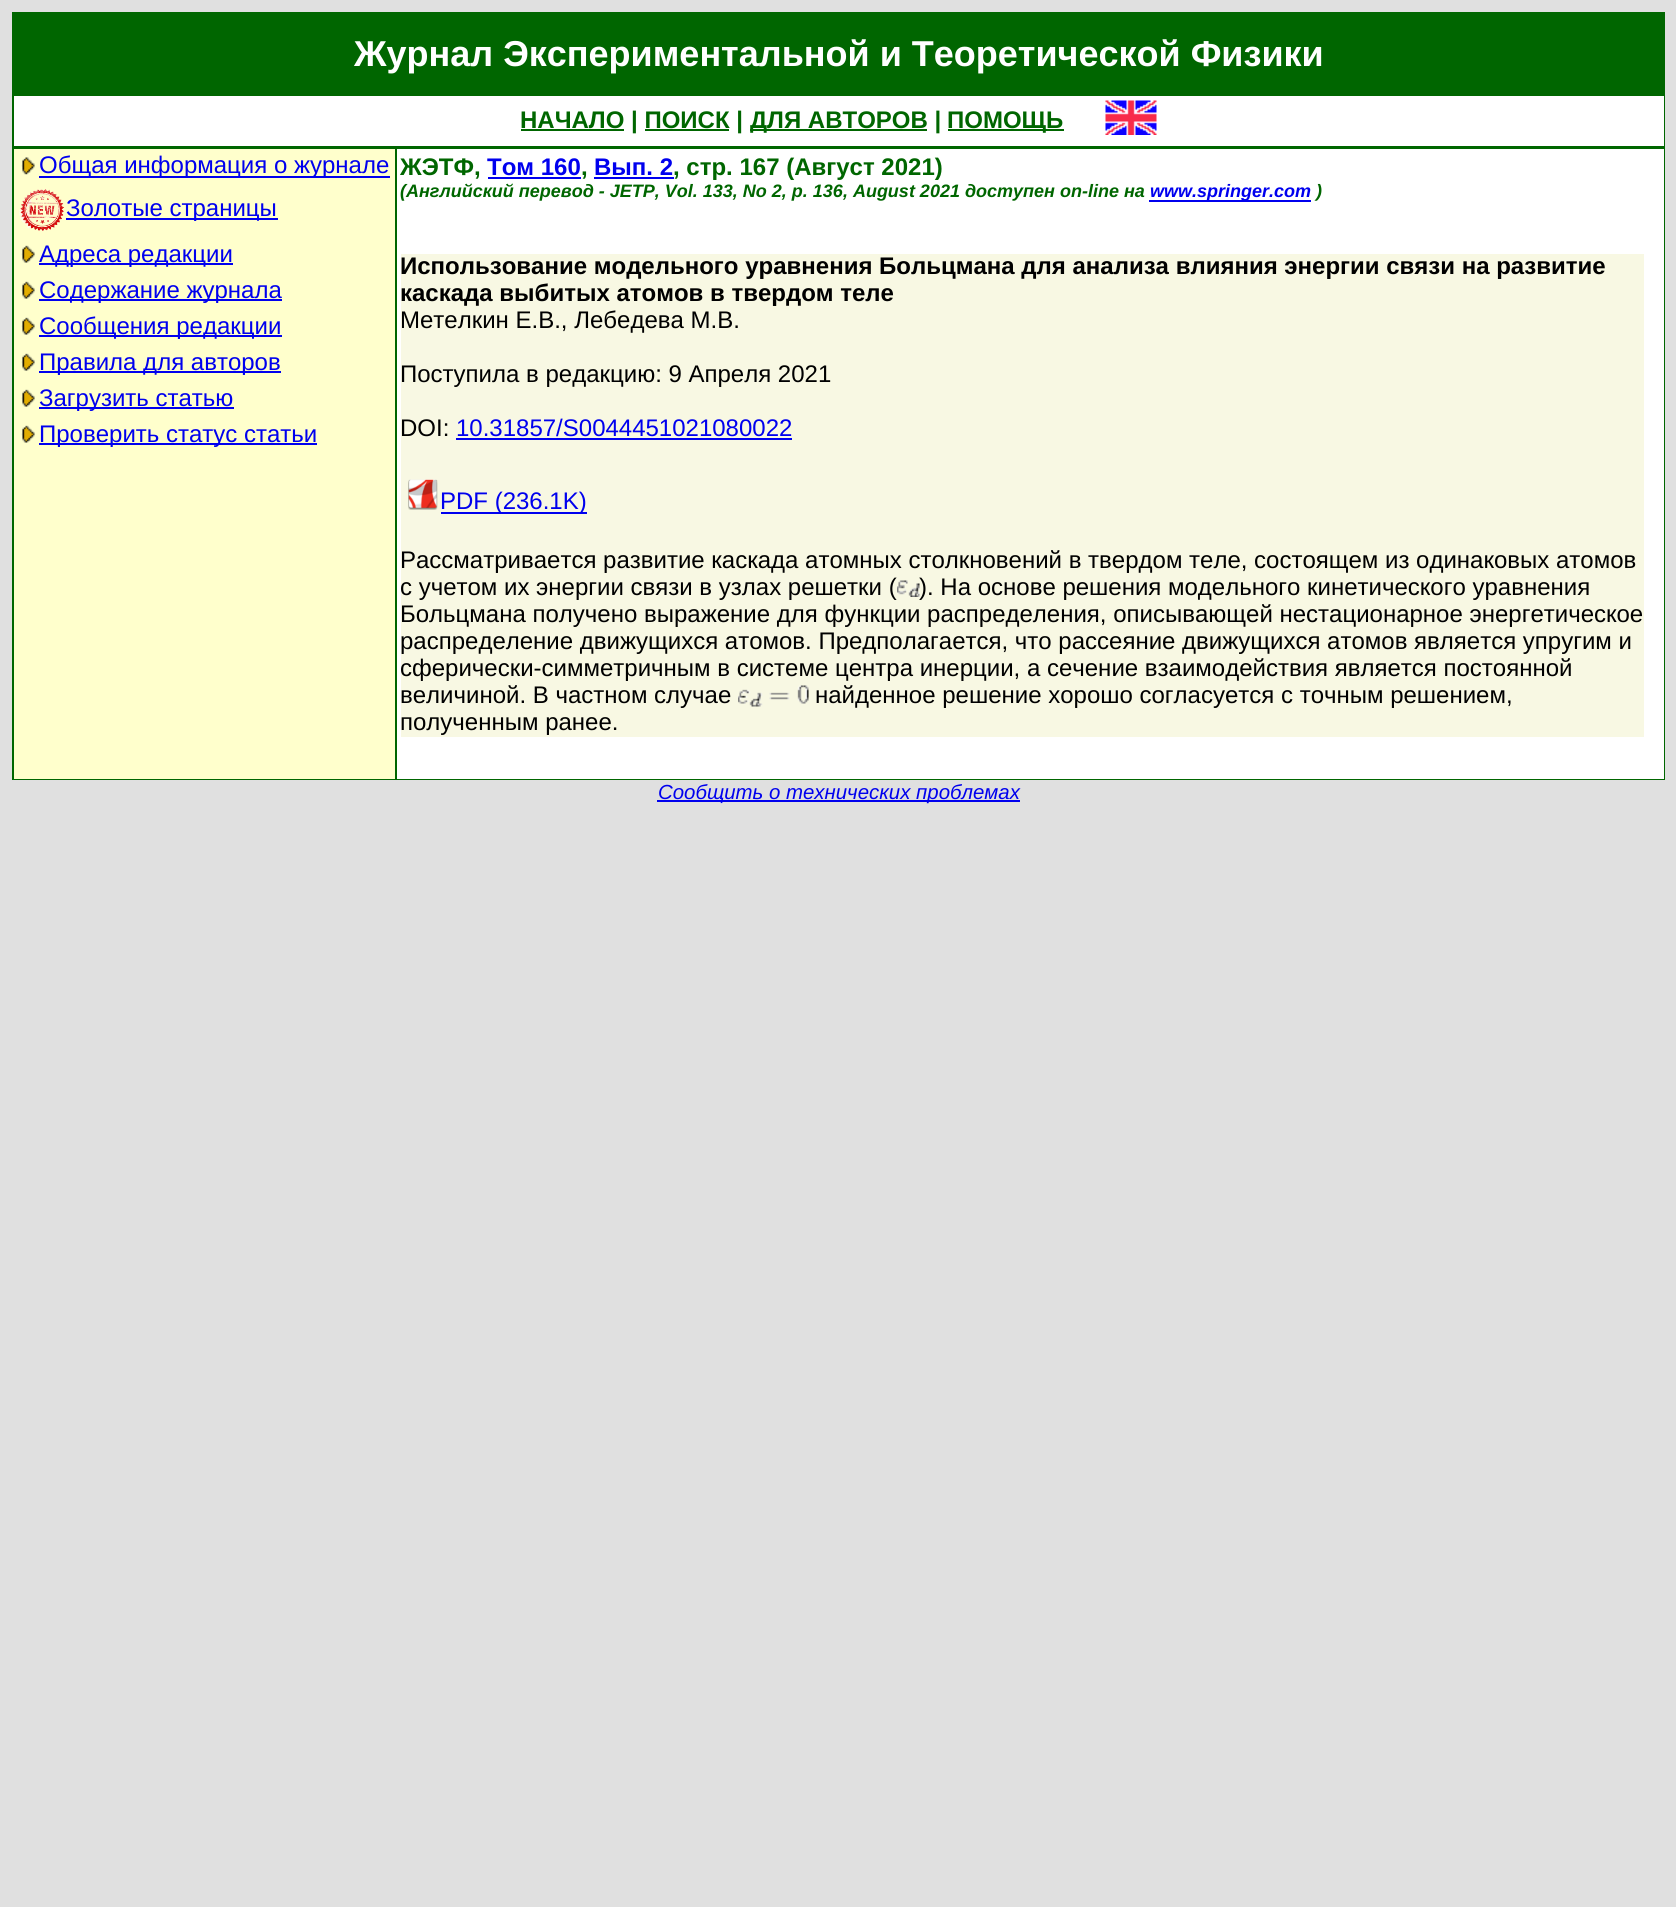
#include <cairo.h>
#include <math.h>
#include <stddef.h>

typedef struct { const char *family; double size; int italic, bold; unsigned color; } style_t;
static cairo_t *ctx;

static void ink(unsigned color) {
    cairo_set_source_rgb(ctx, (color >> 16) / 255.0, (color >> 8 & 255) / 255.0, (color & 255) / 255.0);
}

static void write(double x, double y, const char *s, const style_t *st) {
    cairo_select_font_face(ctx, st->family, st->italic ? CAIRO_FONT_SLANT_ITALIC : CAIRO_FONT_SLANT_NORMAL,
        st->bold ? CAIRO_FONT_WEIGHT_BOLD : CAIRO_FONT_WEIGHT_NORMAL);
    cairo_set_font_size(ctx, st->size);
    ink(st->color);
    cairo_move_to(ctx, x, y);
    cairo_show_text(ctx, s);
}

static void block(double x, double y, double w, double h, unsigned color) {
    ink(color);
    cairo_rectangle(ctx, x, y, w, h);
    cairo_fill(ctx);
}

static void paste(const char *path, double x, double y, double w, double h) {
    cairo_surface_t *image = cairo_image_surface_create_from_png(path);
    cairo_save(ctx);
    cairo_set_source_surface(ctx, image, x, y);
    cairo_rectangle(ctx, x, y, w, h);
    cairo_fill(ctx);
    cairo_restore(ctx);
    cairo_surface_destroy(image);
}

static const style_t s1 = {"Liberation Sans", 36, 0, 1, 0xffffff};
static const style_t s2 = {"Liberation Sans", 24, 0, 1, 0x006600};
static const style_t s3 = {"Liberation Sans", 24, 0, 0, 0x0000ee};
static const style_t s4 = {"Liberation Sans", 24, 0, 1, 0x0000ee};
static const style_t s5 = {"Liberation Sans", 18, 1, 1, 0x006600};
static const style_t s6 = {"Liberation Sans", 18, 1, 1, 0x0000ee};
static const style_t s7 = {"Liberation Sans", 24, 0, 1, 0x000000};
static const style_t s8 = {"Liberation Sans", 24, 0, 0, 0x000000};
static const style_t s9 = {"Liberation Sans", 20.4, 1, 0, 0x0000ee};

int main(void) {
    cairo_surface_t *surface = cairo_image_surface_create(CAIRO_FORMAT_RGB24, 1676, 1907);
    ctx = cairo_create(surface);
    cairo_font_options_t *options = cairo_font_options_create();
    cairo_font_options_set_hint_metrics(options, CAIRO_HINT_METRICS_OFF);
    cairo_font_options_set_hint_style(options, CAIRO_HINT_STYLE_NONE);
    cairo_set_font_options(ctx, options);
    cairo_set_miter_limit(ctx, 4);
    ink(0xe0e0e0);
    cairo_paint(ctx);
    block(12, 12, 1653, 768, 0x006600);
    block(14, 96, 1650, 683, 0xffffff);
    write(354, 66, "Журнал Экспериментальной и Теоретической Физики", &s1);
    block(521, 129, 103, 2, 0x006600);
    write(520, 128, "НАЧАЛО | ПОИСК |", &s2);
    block(750, 129, 177, 2, 0x006600);
    write(750, 128, "ДЛЯ АВТОРОВ |", &s2);
    block(948, 129, 116, 2, 0x006600);
    write(947, 128, "ПОМОЩЬ", &s2);
    block(645, 129, 84, 2, 0x006600);
    paste("pic1.png", 1105, 100, 52, 35);
    block(14, 146, 1650, 3, 0x006600);
    block(14, 149, 381, 630, 0xffffcc);
    paste("pic2.png", 21, 157, 14, 18);
    block(39, 176, 351, 2, 0x0000ee);
    write(39, 173, "Общая информация о журнале", &s3);
    paste("pic3.png", 19, 189, 45, 42);
    block(66, 218, 212, 2, 0x0000ee);
    write(66, 216, "Золотые страницы", &s3);
    paste("pic4.png", 21, 245, 14, 18);
    block(39, 263, 194, 2, 0x0000ee);
    write(39, 262, "Адреса редакции", &s3);
    paste("pic4.png", 21, 281, 14, 18);
    block(39, 299, 243, 2, 0x0000ee);
    write(39, 298, "Содержание журнала", &s3);
    paste("pic4.png", 21, 317, 14, 18);
    block(39, 335, 243, 2, 0x0000ee);
    write(39, 334, "Сообщения редакции", &s3);
    paste("pic4.png", 21, 353, 14, 18);
    block(39, 371, 242, 2, 0x0000ee);
    write(39, 370, "Правила для авторов", &s3);
    paste("pic4.png", 21, 389, 14, 18);
    block(39, 407, 195, 2, 0x0000ee);
    write(39, 406, "Загрузить статью", &s3);
    paste("pic4.png", 21, 425, 14, 18);
    block(39, 443, 278, 2, 0x0000ee);
    write(39, 442, "Проверить статус статьи", &s3);
    block(395, 149, 2, 630, 0x006600);
    write(400, 175, "ЖЭТФ,", &s2);
    write(487, 175, "Том 160", &s4);
    write(581, 175, ",", &s2);
    block(488, 177, 93, 2, 0x0000ee);
    block(594, 177, 80, 2, 0x0000ee);
    write(594, 175, "Вып. 2", &s4);
    write(673, 175, ", стр. 167 (Август 2021)", &s2);
    write(400, 197, "(Английский перевод - JETP, Vol. 133, No 2, p. 136, August 2021 доступен on-line на", &s5);
    block(1149, 200, 162, 2, 0x0000ee);
    write(1150, 197, "www.springer.com", &s6);
    write(1316, 197, ")", &s5);
    block(401, 254, 1243, 483, 0xf8f8e3);
    write(400, 274, "Использование модельного уравнения Больцмана для анализа влияния энергии связи на развитие", &s7);
    write(400, 301, "каскада выбитых атомов в твердом теле", &s7);
    write(400, 328, "Метелкин Е.В., Лебедева М.В.", &s8);
    write(400, 382, "Поступила в редакцию: 9 Апреля 2021", &s8);
    write(400, 436, "DOI:", &s8);
    write(456, 436, "10.31857/S0044451021080022", &s3);
    block(456, 438, 336, 2, 0x0000ee);
    paste("pic5.png", 408, 479, 30, 31);
    block(441, 512, 146, 2, 0x0000ee);
    write(440, 509, "PDF (236.1K)", &s3);
    write(400, 568, "Рассматривается развитие каскада атомных столкновений в твердом теле, состоящем из одинаковых атомов", &s8);
    write(400, 595, "с учетом их энергии связи в узлах решетки (", &s8);
    paste("pic6.png", 897, 580, 23, 17);
    write(919, 595, "). На основе решения модельного кинетического уравнения", &s8);
    write(400, 622, "Больцмана получено выражение для функции распределения, описывающей нестационарное энергетическое", &s8);
    write(400, 649, "распределение движущихся атомов. Предполагается, что рассеяние движущихся атомов является упругим и", &s8);
    write(400, 676, "сферически-симметричным в системе центра инерции, а сечение взаимодействия является постоянной", &s8);
    write(400, 703, "величиной. В частном случае", &s8);
    paste("pic7.png", 738, 685, 71, 22);
    write(815, 703, "найденное решение хорошо согласуется с точным решением,", &s8);
    write(400, 730, "полученным ранее.", &s8);
    block(657, 800, 363, 2, 0x0000ee);
    write(658, 799, "Сообщить о технических проблемах", &s9);
    cairo_surface_write_to_png(surface, "screenshot.png");
    cairo_font_options_destroy(options);
    cairo_destroy(ctx);
    cairo_surface_destroy(surface);
    return 0;
}
